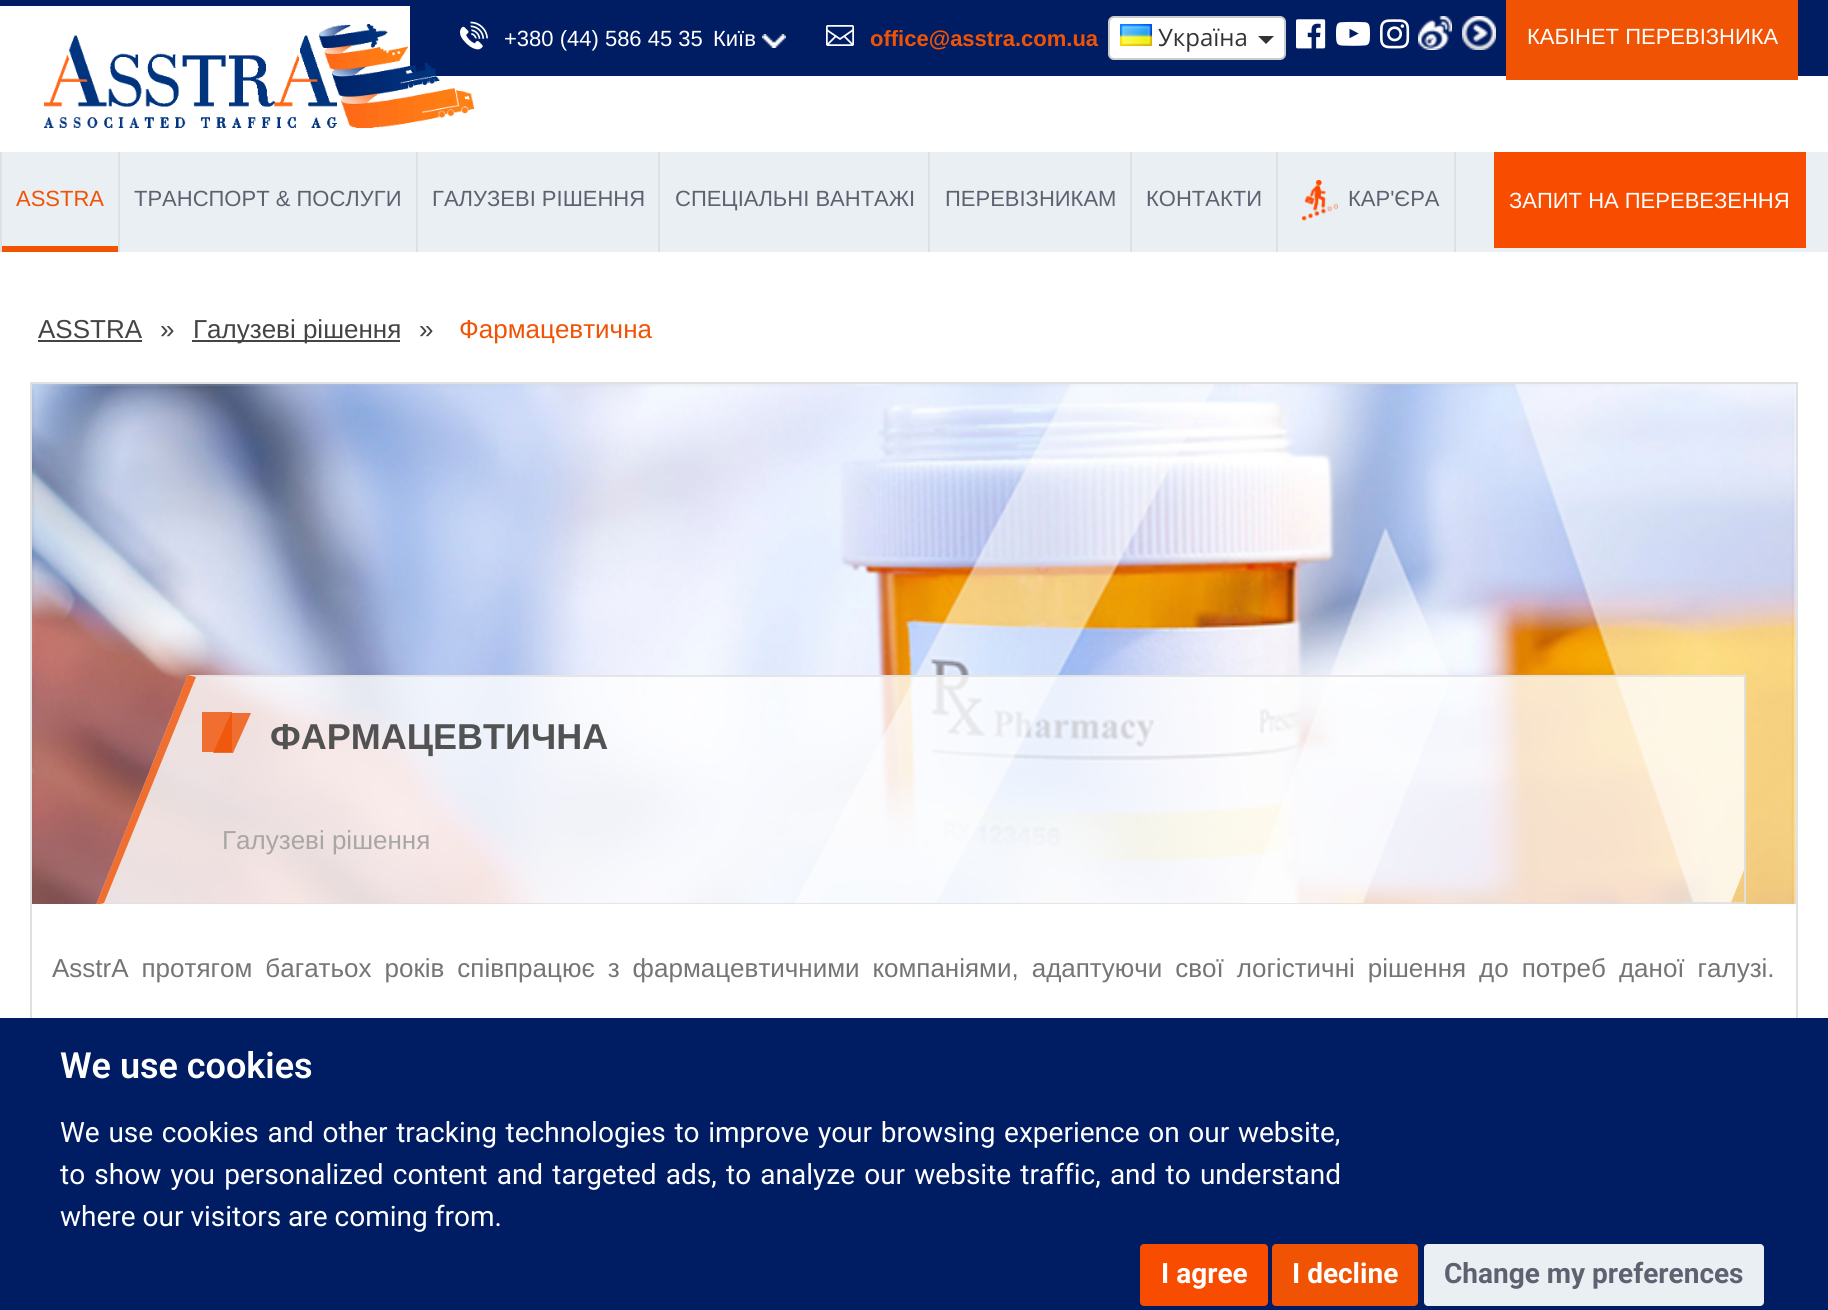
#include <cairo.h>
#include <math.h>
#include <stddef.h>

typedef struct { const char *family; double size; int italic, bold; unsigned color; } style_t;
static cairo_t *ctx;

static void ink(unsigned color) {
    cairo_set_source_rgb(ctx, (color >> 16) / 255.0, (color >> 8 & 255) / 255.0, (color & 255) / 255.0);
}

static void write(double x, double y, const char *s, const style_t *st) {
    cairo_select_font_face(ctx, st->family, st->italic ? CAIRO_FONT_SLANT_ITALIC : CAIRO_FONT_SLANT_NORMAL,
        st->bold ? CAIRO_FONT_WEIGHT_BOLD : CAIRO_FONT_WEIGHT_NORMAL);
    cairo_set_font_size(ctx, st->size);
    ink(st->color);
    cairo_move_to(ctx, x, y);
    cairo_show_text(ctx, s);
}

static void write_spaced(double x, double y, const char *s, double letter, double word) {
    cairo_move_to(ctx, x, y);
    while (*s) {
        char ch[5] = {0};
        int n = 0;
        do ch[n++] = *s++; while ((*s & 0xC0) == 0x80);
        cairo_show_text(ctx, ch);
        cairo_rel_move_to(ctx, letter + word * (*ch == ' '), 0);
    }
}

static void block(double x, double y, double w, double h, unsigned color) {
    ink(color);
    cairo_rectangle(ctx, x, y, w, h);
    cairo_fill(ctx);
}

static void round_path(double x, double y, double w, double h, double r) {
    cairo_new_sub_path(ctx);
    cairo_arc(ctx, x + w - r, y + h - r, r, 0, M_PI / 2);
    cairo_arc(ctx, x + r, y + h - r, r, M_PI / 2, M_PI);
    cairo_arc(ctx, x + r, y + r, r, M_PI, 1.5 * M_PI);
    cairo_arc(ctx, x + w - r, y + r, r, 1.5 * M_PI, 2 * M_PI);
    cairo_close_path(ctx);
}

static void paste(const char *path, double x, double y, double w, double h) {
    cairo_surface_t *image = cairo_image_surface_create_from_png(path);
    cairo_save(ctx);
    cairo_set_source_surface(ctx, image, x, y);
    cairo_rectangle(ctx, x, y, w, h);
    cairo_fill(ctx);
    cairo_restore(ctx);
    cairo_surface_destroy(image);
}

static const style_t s1 = {"Liberation Sans", 22, 0, 0, 0xffffff};
static const style_t s2 = {"Liberation Sans", 22, 0, 1, 0xf05304};
static const style_t s3 = {"Open Sans", 24, 0, 0, 0x333333};
static const style_t s4 = {"Liberation Sans", 22, 0, 0, 0xf05304};
static const style_t s5 = {"Liberation Sans", 22, 0, 0, 0x5f6171};
static const style_t s6 = {"Liberation Sans", 26, 0, 0, 0x444444};
static const style_t s7 = {"Liberation Sans", 26, 0, 0, 0xf05304};
static const style_t s8 = {"Liberation Sans", 36, 0, 1, 0x535253};
static const style_t s9 = {"Liberation Sans", 26, 0, 0, 0xa9a6a6};
static const style_t s10 = {"Roboto SemiBold", 36, 0, 0, 0xffffff};
static const style_t s11 = {"Roboto", 28, 0, 0, 0xffffff};
static const style_t s12 = {"Roboto", 28, 0, 1, 0xffffff};
static const style_t s13 = {"Roboto", 28, 0, 1, 0x5f6171};

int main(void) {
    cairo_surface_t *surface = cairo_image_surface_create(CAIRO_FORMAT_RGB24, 1828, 1310);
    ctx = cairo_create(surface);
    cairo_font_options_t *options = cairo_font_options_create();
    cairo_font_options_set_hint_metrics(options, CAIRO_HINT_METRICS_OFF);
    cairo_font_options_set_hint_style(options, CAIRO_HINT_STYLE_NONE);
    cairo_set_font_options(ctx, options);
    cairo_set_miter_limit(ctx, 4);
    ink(0xffffff);
    cairo_paint(ctx);
    ink(0x001d64);
    cairo_new_path(ctx);
    cairo_move_to(ctx, 410, 6);
    cairo_line_to(ctx, 1798, 6);
    cairo_line_to(ctx, 1798, 76);
    cairo_line_to(ctx, 420, 76);
    cairo_curve_to(ctx, 414.5, 76, 410, 71.5, 410, 66);
    cairo_close_path(ctx);
    cairo_fill(ctx);
    paste("pic2.png", 460, 21, 28, 29);
    paste("pic1.png", 44, 24, 430, 104);
    block(0, 0, 1828, 6, 0x001d64);
    write(504, 46, "+380 (44) 586 45 35", &s1);
    write(713, 46, "Київ", &s1);
    paste("pic3.png", 762, 34, 24, 14);
    paste("pic4.png", 826, 25, 28, 21);
    write(870, 46, "office@asstra.com.ua", &s2);
    ink(0xffffff);
    round_path(1109, 17, 176, 42, 5);
    cairo_fill_preserve(ctx);
    ink(0xcccccc);
    cairo_stroke(ctx);
    paste("pic5.png", 1120, 24, 32, 22);
    write(1158, 46, "Україна", &s3);
    cairo_new_path(ctx);
    cairo_move_to(ctx, 1258, 36);
    cairo_line_to(ctx, 1274, 36);
    cairo_line_to(ctx, 1266, 44);
    cairo_close_path(ctx);
    cairo_fill(ctx);
    paste("pic6.png", 1296, 19, 30, 30);
    paste("pic7.png", 1336, 21, 34, 25);
    paste("pic8.png", 1380, 19, 30, 30);
    paste("pic9.png", 1418, 16, 34, 34);
    paste("pic10.png", 1462, 16, 34, 34);
    block(1506, 0, 292, 80, 0xf05304);
    write(1527, 44, "КАБІНЕТ ПЕРЕВІЗНИКА", &s1);
    block(1798, 6, 30, 70, 0x001d64);
    block(2, 152, 1826, 100, 0xeaeff3);
    block(118, 152, 2, 100, 0xe0e0e0);
    block(0, 152, 2, 100, 0xe0e0e0);
    block(2, 246, 116, 6, 0xf05304);
    write(16, 206, "ASSTRA", &s4);
    block(416, 152, 2, 100, 0xe0e0e0);
    write(134, 206, "ТРАНСПОРТ & ПОСЛУГИ", &s5);
    block(658, 152, 2, 100, 0xe0e0e0);
    write(432, 206, "ГАЛУЗЕВІ РІШЕННЯ", &s5);
    block(928, 152, 2, 100, 0xe0e0e0);
    write(675, 206, "СПЕЦІАЛЬНІ ВАНТАЖІ", &s5);
    block(1130, 152, 2, 100, 0xe0e0e0);
    write(945, 206, "ПЕРЕВІЗНИКАМ", &s5);
    block(1276, 152, 2, 100, 0xe0e0e0);
    write(1146, 206, "КОНТАКТИ", &s5);
    block(1454, 152, 2, 100, 0xe0e0e0);
    paste("pic11.png", 1302, 180, 36, 41);
    write(1348, 206, "КАР'ЄРА", &s5);
    block(1494, 152, 312, 96, 0xf84c00);
    write(1509, 208, "ЗАПИТ НА ПЕРЕВЕЗЕННЯ", &s1);
    write(38, 338, "ASSTRA", &s6);
    block(38, 340, 104, 2, 0x444444);
    write(160, 338, "»", &s6);
    block(192, 340, 208, 2, 0x444444);
    write(193, 338, "Галузеві рішення", &s6);
    write(419, 338, "»", &s6);
    write(459, 338, "Фармацевтична", &s7);
    cairo_rectangle(ctx, 31, 383, 1766, 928);
    ink(0xdee0e3);
    cairo_stroke(ctx);
    paste("pic12.png", 32, 384, 1764, 520);
    cairo_save(ctx);
    cairo_rectangle(ctx, 82, 674, 1664, 230);
    cairo_clip(ctx);
    cairo_set_source_rgba(ctx, 1, 1, 1, 0.8);
    cairo_new_path(ctx);
    cairo_move_to(ctx, 188, 675);
    cairo_line_to(ctx, 1822, 675);
    cairo_line_to(ctx, 1730, 905);
    cairo_line_to(ctx, 96, 905);
    cairo_close_path(ctx);
    cairo_fill(ctx);
    cairo_set_source_rgba(ctx, 0.878, 0.878, 0.878, 0.8);
    cairo_new_path(ctx);
    cairo_move_to(ctx, 188, 675);
    cairo_line_to(ctx, 1822, 675);
    cairo_line_to(ctx, 1822, 677);
    cairo_line_to(ctx, 196, 677);
    cairo_close_path(ctx);
    cairo_fill(ctx);
    cairo_new_path(ctx);
    cairo_move_to(ctx, 1730, 905);
    cairo_line_to(ctx, 96, 905);
    cairo_line_to(ctx, 104, 903);
    cairo_line_to(ctx, 1730, 903);
    cairo_close_path(ctx);
    cairo_fill(ctx);
    cairo_set_source_rgba(ctx, 0.941, 0.325, 0.016, 0.8);
    cairo_new_path(ctx);
    cairo_move_to(ctx, 96, 905);
    cairo_line_to(ctx, 188, 675);
    cairo_line_to(ctx, 196, 677);
    cairo_line_to(ctx, 104, 903);
    cairo_close_path(ctx);
    cairo_fill(ctx);
    cairo_restore(ctx);
    block(202, 712, 30, 40, 0xf06f30);
    cairo_set_source_rgba(ctx, 0.941, 0.325, 0.016, 0.8);
    cairo_new_path(ctx);
    cairo_move_to(ctx, 231, 713);
    cairo_line_to(ctx, 251, 713);
    cairo_line_to(ctx, 233, 753);
    cairo_line_to(ctx, 213, 753);
    cairo_close_path(ctx);
    cairo_fill(ctx);
    write(270, 749, "ФАРМАЦЕВТИЧНА", &s8);
    write(222, 849, "Галузеві рішення", &s9);
    cairo_set_source_rgba(ctx, 0.878, 0.878, 0.878, 0.8);
    cairo_rectangle(ctx, 1684, 902, 60, 2);
    cairo_fill(ctx);
    block(1744, 674, 2, 230, 0xe0e0e0);
    ink(0x757575);
    write_spaced(52, 977, "AsstrA протягом багатьох років співпрацює з фармацевтичними компаніями, адаптуючи свої логістичні рішення до потреб даної галузі.", 0, 5.75);
    block(0, 1018, 1828, 292, 0x001d64);
    write(60, 1078, "We use cookies", &s10);
    cairo_select_font_face(ctx, "Roboto", CAIRO_FONT_SLANT_NORMAL, CAIRO_FONT_WEIGHT_NORMAL);
    cairo_set_font_size(ctx, 28);
    write_spaced(60, 1142, "We use cookies and other tracking technologies to improve your browsing experience on our website,", 0, 1.75);
    write_spaced(60, 1184, "to show you personalized content and targeted ads, to analyze our website traffic, and to understand", 0, 2.25);
    write(60, 1226, "where our visitors are coming from.", &s11);
    ink(0xf84c00);
    round_path(1140, 1244, 128, 62, 4);
    cairo_fill(ctx);
    write(1161, 1283, "I agree", &s12);
    ink(0xf05304);
    round_path(1272, 1244, 146, 62, 4);
    cairo_fill(ctx);
    write(1292, 1283, "I decline", &s12);
    ink(0xeaeff3);
    round_path(1424, 1244, 340, 62, 4);
    cairo_fill(ctx);
    write(1444, 1283, "Change my preferences", &s13);
    cairo_surface_write_to_png(surface, "screenshot.png");
    cairo_font_options_destroy(options);
    cairo_destroy(ctx);
    cairo_surface_destroy(surface);
    return 0;
}
